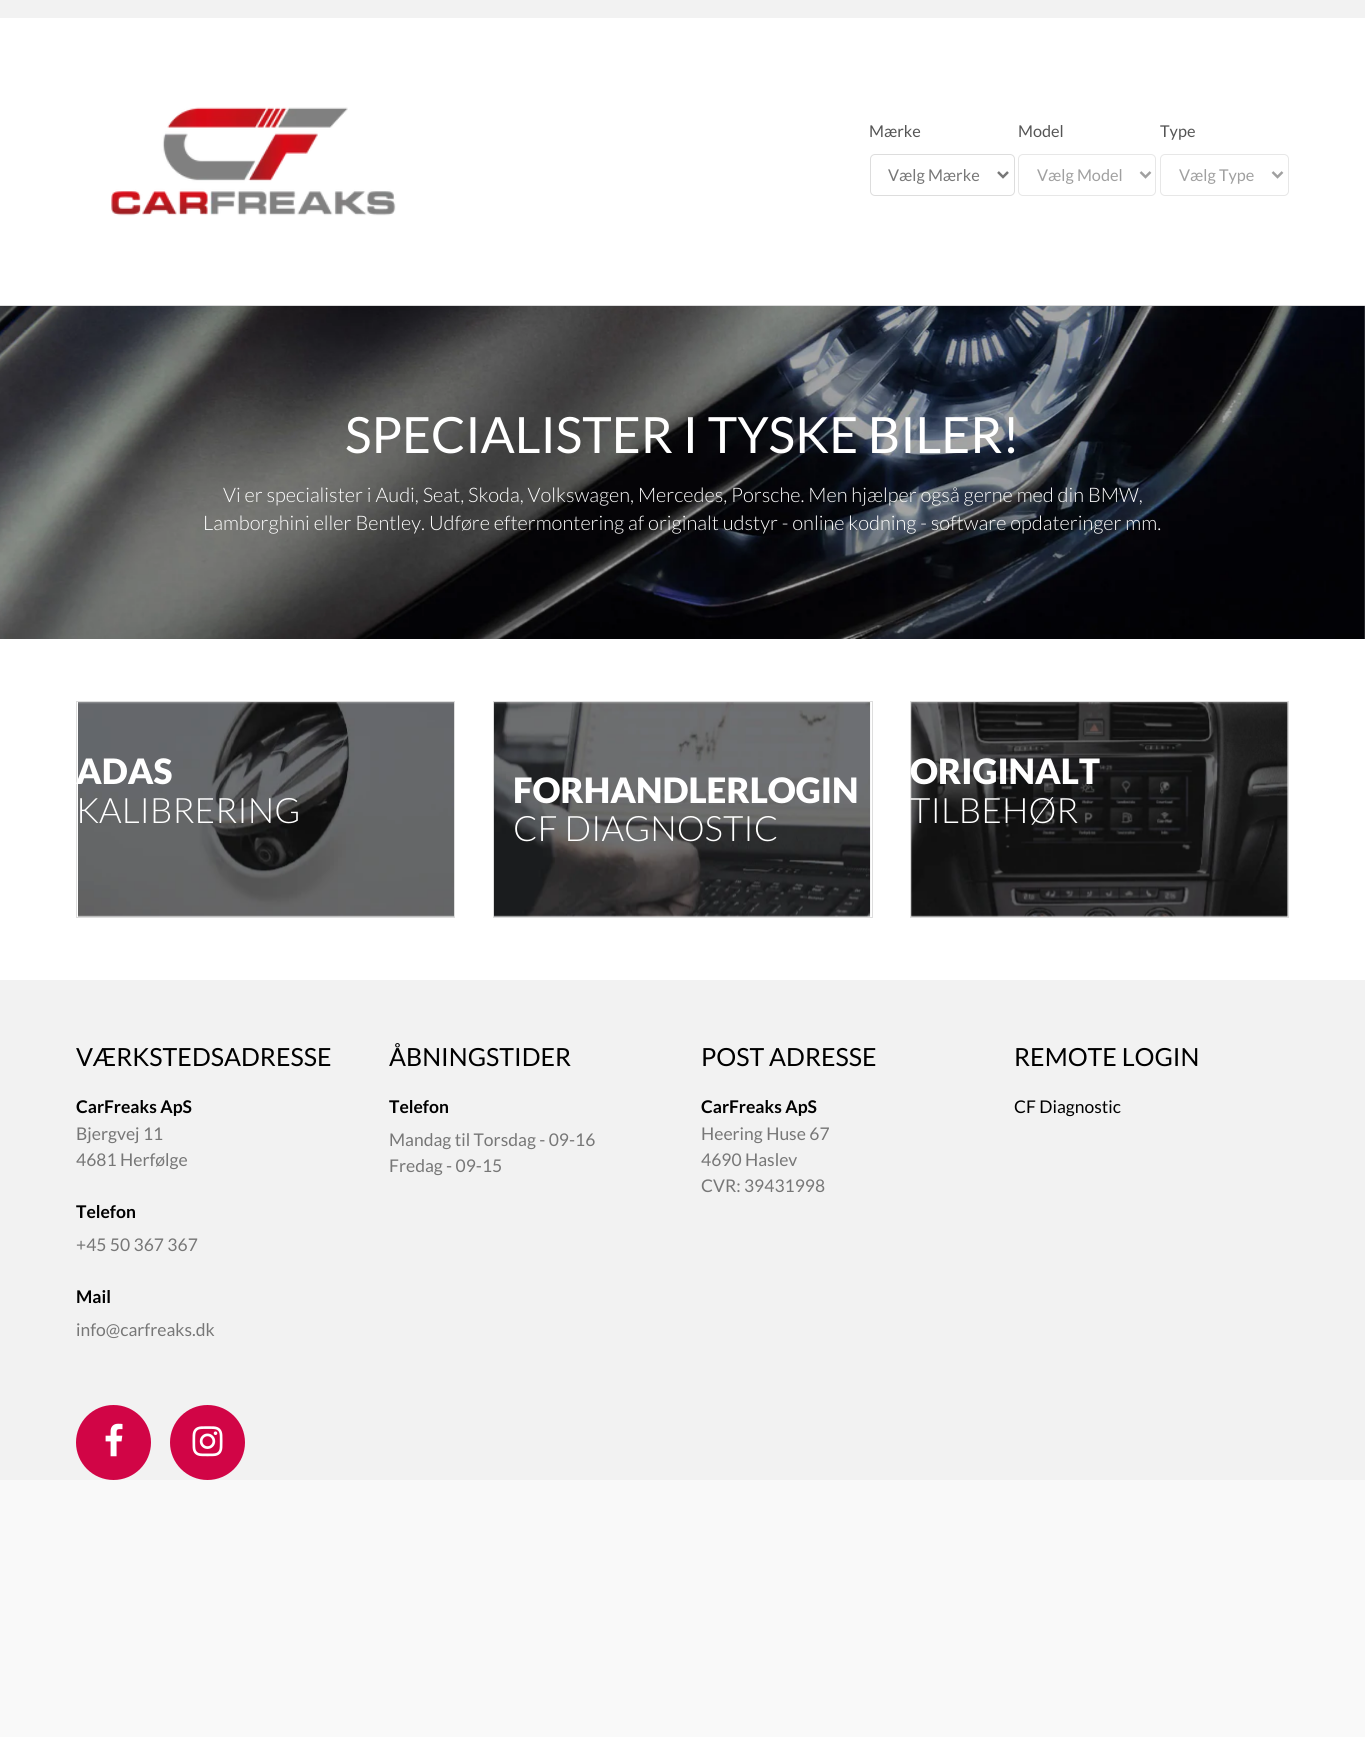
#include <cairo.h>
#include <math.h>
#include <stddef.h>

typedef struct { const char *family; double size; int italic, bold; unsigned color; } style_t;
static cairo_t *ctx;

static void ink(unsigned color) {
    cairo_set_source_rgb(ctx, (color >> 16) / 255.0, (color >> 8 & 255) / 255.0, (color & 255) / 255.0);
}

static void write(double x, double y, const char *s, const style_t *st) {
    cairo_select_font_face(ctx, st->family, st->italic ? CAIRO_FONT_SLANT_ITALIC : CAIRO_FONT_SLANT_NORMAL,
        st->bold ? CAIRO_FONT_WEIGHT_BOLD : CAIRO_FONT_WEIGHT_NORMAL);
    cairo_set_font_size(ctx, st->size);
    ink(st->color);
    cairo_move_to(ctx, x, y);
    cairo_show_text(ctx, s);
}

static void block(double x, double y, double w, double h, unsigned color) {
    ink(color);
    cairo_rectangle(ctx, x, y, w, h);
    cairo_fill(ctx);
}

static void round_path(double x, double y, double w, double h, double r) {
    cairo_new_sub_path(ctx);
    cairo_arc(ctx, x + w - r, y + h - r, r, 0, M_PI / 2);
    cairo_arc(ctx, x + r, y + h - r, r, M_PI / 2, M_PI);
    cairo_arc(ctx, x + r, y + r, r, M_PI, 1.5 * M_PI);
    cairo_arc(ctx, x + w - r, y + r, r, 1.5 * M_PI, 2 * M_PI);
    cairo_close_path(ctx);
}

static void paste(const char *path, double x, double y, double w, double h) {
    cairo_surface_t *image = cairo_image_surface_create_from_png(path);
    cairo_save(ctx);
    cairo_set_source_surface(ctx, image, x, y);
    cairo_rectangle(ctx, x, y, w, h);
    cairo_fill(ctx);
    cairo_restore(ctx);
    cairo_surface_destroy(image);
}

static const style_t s1 = {"Lato", 16.25, 0, 0, 0x555555};
static const style_t s2 = {"Lato", 16.25, 0, 0, 0x777777};
static const style_t s3 = {"Lato", 16.25, 0, 0, 0xa0a0a0};
static const style_t s4 = {"Lato", 50, 0, 0, 0xffffff};
static const style_t s5 = {"Lato Light", 20, 0, 0, 0xffffff};
static const style_t s6 = {"Lato Black", 35, 0, 0, 0xffffff};
static const style_t s7 = {"Lato Light", 35, 0, 0, 0xffffff};
static const style_t s8 = {"Lato", 25, 0, 0, 0x000000};
static const style_t s9 = {"Lato", 17.5, 0, 1, 0x000000};
static const style_t s10 = {"Lato", 17.5, 0, 0, 0x777777};
static const style_t s11 = {"Lato", 17.5, 0, 0, 0x000000};

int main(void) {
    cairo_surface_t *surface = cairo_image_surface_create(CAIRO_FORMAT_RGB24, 1365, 1737);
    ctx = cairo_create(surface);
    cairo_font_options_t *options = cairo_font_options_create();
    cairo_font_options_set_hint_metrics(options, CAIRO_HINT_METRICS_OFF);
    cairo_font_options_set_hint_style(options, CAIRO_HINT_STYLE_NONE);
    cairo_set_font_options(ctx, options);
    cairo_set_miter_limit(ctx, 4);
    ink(0xf9f9f9);
    cairo_paint(ctx);
    block(0, 0, 1365, 18, 0xf2f2f2);
    block(0, 305, 1365, 1, 0xdddddd);
    block(0, 18, 1365, 287, 0xffffff);
    paste("pic1.png", 111, 107, 285, 109);
    write(869, 137, "Mærke", &s1);
    round_path(870.5, 154.5, 144, 41, 4.5);
    ink(0xdddddd);
    cairo_set_line_width(ctx, 1);
    cairo_stroke(ctx);
    cairo_new_path(ctx);
    cairo_move_to(ctx, 998, 172);
    cairo_line_to(ctx, 1003, 177);
    cairo_line_to(ctx, 1008, 172);
    ink(0x777777);
    cairo_set_line_width(ctx, 2.5);
    cairo_stroke(ctx);
    write(888, 181, "Vælg Mærke", &s2);
    write(1018, 137, "Model", &s1);
    round_path(1018.5, 154.5, 137, 41, 4.5);
    ink(0xe7e7e7);
    cairo_set_line_width(ctx, 1);
    cairo_stroke(ctx);
    cairo_new_path(ctx);
    cairo_move_to(ctx, 1140.5, 172);
    cairo_line_to(ctx, 1145.5, 177);
    cairo_line_to(ctx, 1150.5, 172);
    ink(0xa0a0a0);
    cairo_set_line_width(ctx, 2.5);
    cairo_stroke(ctx);
    write(1037, 181, "Vælg Model", &s3);
    write(1160, 137, "Type", &s1);
    round_path(1160.5, 154.5, 128, 41, 4.5);
    ink(0xe7e7e7);
    cairo_set_line_width(ctx, 1);
    cairo_stroke(ctx);
    cairo_new_path(ctx);
    cairo_move_to(ctx, 1272.5, 172);
    cairo_line_to(ctx, 1277.5, 177);
    cairo_line_to(ctx, 1282.5, 172);
    ink(0xa0a0a0);
    cairo_set_line_width(ctx, 2.5);
    cairo_stroke(ctx);
    write(1179, 181, "Vælg Type", &s3);
    block(0, 306, 1365, 674, 0xffffff);
    paste("pic2.png", 0, 306, 1365, 333);
    write(345, 453, "SPECIALISTER I TYSKE BILER!", &s4);
    write(223, 502, "Vi er specialister i Audi, Seat, Skoda, Volkswagen, Mercedes, Porsche. Men hjælper også gerne med din BMW,", &s5);
    write(203, 530, "Lamborghini eller Bentley. Udføre eftermontering af originalt udstyr - online kodning - software opdateringer mm.", &s5);
    cairo_rectangle(ctx, 76.5, 701.5, 378, 216);
    ink(0xdddddd);
    cairo_set_line_width(ctx, 1);
    cairo_stroke(ctx);
    paste("pic3.png", 78, 702, 376, 215);
    write(76, 784, "ADAS", &s6);
    write(76, 823, "KALIBRERING", &s7);
    cairo_rectangle(ctx, 493.5, 701.5, 379, 216);
    ink(0xdddddd);
    cairo_stroke(ctx);
    paste("pic4.png", 494, 702, 377, 215);
    write(513, 803, "FORHANDLERLOGIN", &s6);
    write(513, 841, "CF DIAGNOSTIC", &s7);
    cairo_rectangle(ctx, 910.5, 701.5, 378, 216);
    ink(0xdddddd);
    cairo_stroke(ctx);
    paste("pic5.png", 911, 702, 377, 215);
    write(910, 784, "ORIGINALT", &s6);
    write(910, 823, "TILBEHØR", &s7);
    block(0, 980, 1365, 500, 0xf2f2f2);
    write(76, 1066, "VÆRKSTEDSADRESSE", &s8);
    write(76, 1113, "CarFreaks ApS", &s9);
    write(76, 1140, "Bjergvej 11", &s10);
    write(76, 1166, "4681 Herfølge", &s10);
    write(76, 1218, "Telefon", &s9);
    write(76, 1251, "+45 50 367 367", &s10);
    write(76, 1303, "Mail", &s9);
    write(76, 1336, "info@carfreaks.dk", &s10);
    write(389, 1066, "ÅBNINGSTIDER", &s8);
    write(389, 1113, "Telefon", &s9);
    write(389, 1146, "Mandag til Torsdag - 09-16", &s10);
    write(389, 1172, "Fredag - 09-15", &s10);
    write(701, 1066, "POST ADRESSE", &s8);
    write(701, 1113, "CarFreaks ApS", &s9);
    write(701, 1140, "Heering Huse 67", &s10);
    write(701, 1166, "4690 Haslev", &s10);
    write(701, 1192, "CVR: 39431998", &s10);
    write(1014, 1066, "REMOTE LOGIN", &s8);
    write(1014, 1113, "CF Diagnostic", &s11);
    ink(0xd10546);
    cairo_new_path(ctx);
    cairo_arc(ctx, 113.5, 1442.5, 37.5, 0, 2 * M_PI);
    cairo_fill(ctx);
    paste("pic6.png", 105, 1423, 18, 34);
    cairo_arc(ctx, 207.5, 1442.5, 37.5, 0, 2 * M_PI);
    cairo_fill(ctx);
    paste("pic7.png", 192, 1426, 31, 31);
    cairo_surface_write_to_png(surface, "screenshot.png");
    cairo_font_options_destroy(options);
    cairo_destroy(ctx);
    cairo_surface_destroy(surface);
    return 0;
}
